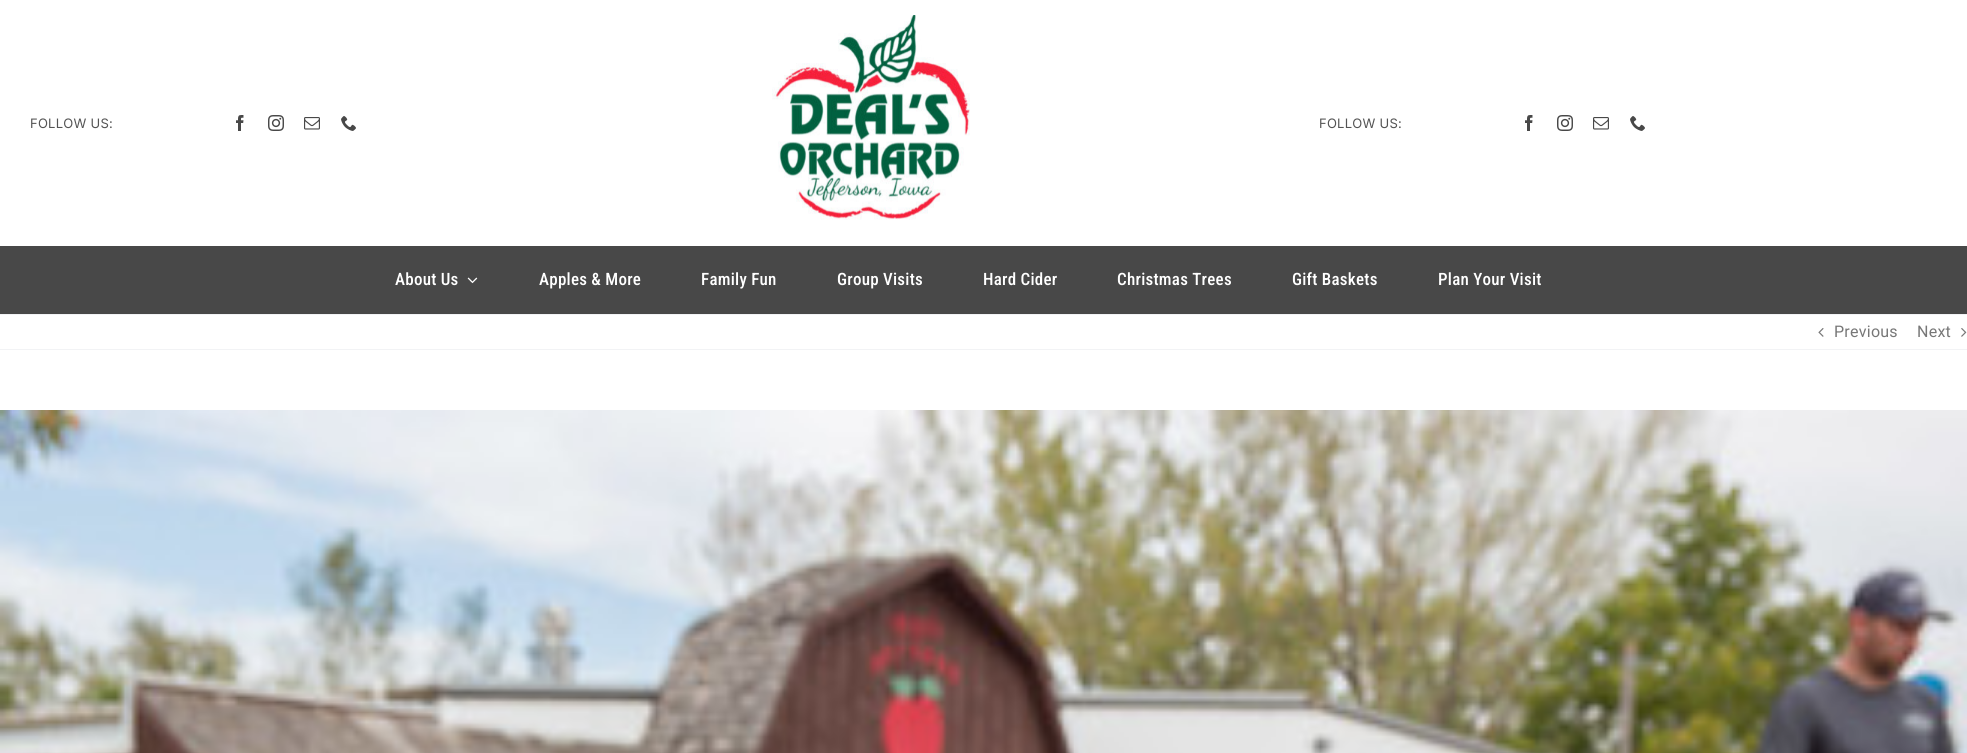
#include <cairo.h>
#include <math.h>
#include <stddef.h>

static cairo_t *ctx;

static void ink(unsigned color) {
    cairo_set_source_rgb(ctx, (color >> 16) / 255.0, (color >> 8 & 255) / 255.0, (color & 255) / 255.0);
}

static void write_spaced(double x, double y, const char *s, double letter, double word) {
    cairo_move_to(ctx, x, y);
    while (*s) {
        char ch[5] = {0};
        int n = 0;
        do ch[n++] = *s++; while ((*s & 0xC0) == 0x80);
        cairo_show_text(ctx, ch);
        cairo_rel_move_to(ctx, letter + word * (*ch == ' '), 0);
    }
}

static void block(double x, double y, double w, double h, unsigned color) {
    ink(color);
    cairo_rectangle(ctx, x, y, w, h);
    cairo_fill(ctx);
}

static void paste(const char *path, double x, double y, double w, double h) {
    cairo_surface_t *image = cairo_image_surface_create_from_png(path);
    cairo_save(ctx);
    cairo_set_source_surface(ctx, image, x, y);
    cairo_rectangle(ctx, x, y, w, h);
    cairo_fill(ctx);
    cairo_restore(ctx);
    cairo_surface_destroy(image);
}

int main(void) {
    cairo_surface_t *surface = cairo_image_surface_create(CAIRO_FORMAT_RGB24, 1967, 753);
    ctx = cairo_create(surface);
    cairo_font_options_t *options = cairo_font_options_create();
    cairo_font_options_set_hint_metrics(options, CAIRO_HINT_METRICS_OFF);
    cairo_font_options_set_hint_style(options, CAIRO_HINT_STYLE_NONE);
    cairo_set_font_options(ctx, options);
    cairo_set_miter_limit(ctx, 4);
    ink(0xffffff);
    cairo_paint(ctx);
    cairo_select_font_face(ctx, "Inter", CAIRO_FONT_SLANT_NORMAL, CAIRO_FONT_WEIGHT_NORMAL);
    cairo_set_font_size(ctx, 13);
    ink(0x545454);
    write_spaced(30, 128, "FOLLOW US:", 0.25, 0);
    paste("pic1.png", 236, 115, 8, 16);
    paste("pic2.png", 268, 115, 16, 16);
    paste("pic3.png", 304, 117, 16, 13);
    paste("pic4.png", 341, 116, 15, 15);
    paste("pic5.png", 772, 15, 198, 205);
    write_spaced(1319, 128, "FOLLOW US:", 0.25, 0);
    paste("pic1.png", 1525, 115, 8, 16);
    paste("pic2.png", 1557, 115, 16, 16);
    paste("pic3.png", 1593, 117, 16, 13);
    paste("pic4.png", 1630, 116, 15, 15);
    block(0, 246, 1967, 68, 0x484848);
    cairo_select_font_face(ctx, "Roboto Condensed Medium", CAIRO_FONT_SLANT_NORMAL, CAIRO_FONT_WEIGHT_NORMAL);
    cairo_set_font_size(ctx, 17);
    ink(0xffffff);
    write_spaced(395, 285, "About Us", 0.25, 0);
    paste("pic6.png", 467, 277, 11, 7);
    write_spaced(539, 285, "Apples & More", 0.25, 0);
    write_spaced(701, 285, "Family Fun", 0.25, 0);
    write_spaced(837, 285, "Group Visits", 0.25, 0);
    write_spaced(983, 285, "Hard Cider", 0.25, 0);
    write_spaced(1117, 285, "Christmas Trees", 0.25, 0);
    write_spaced(1292, 285, "Gift Baskets", 0.25, 0);
    write_spaced(1438, 285, "Plan Your Visit", 0.25, 0);
    block(0, 314, 1967, 1, 0xf2f3f5);
    block(0, 349, 1967, 1, 0xf2f3f5);
    paste("pic7.png", 1818, 328, 6, 9);
    cairo_select_font_face(ctx, "Roboto", CAIRO_FONT_SLANT_NORMAL, CAIRO_FONT_WEIGHT_NORMAL);
    cairo_set_font_size(ctx, 16);
    ink(0x777777);
    write_spaced(1834, 337, "Previous", 0.25, 0);
    write_spaced(1917, 337, "Next", 0.25, 0);
    paste("pic8.png", 1961, 328, 6, 9);
    paste("pic9.png", 0, 410, 1967, 343);
    cairo_surface_write_to_png(surface, "screenshot.png");
    cairo_font_options_destroy(options);
    cairo_destroy(ctx);
    cairo_surface_destroy(surface);
    return 0;
}
